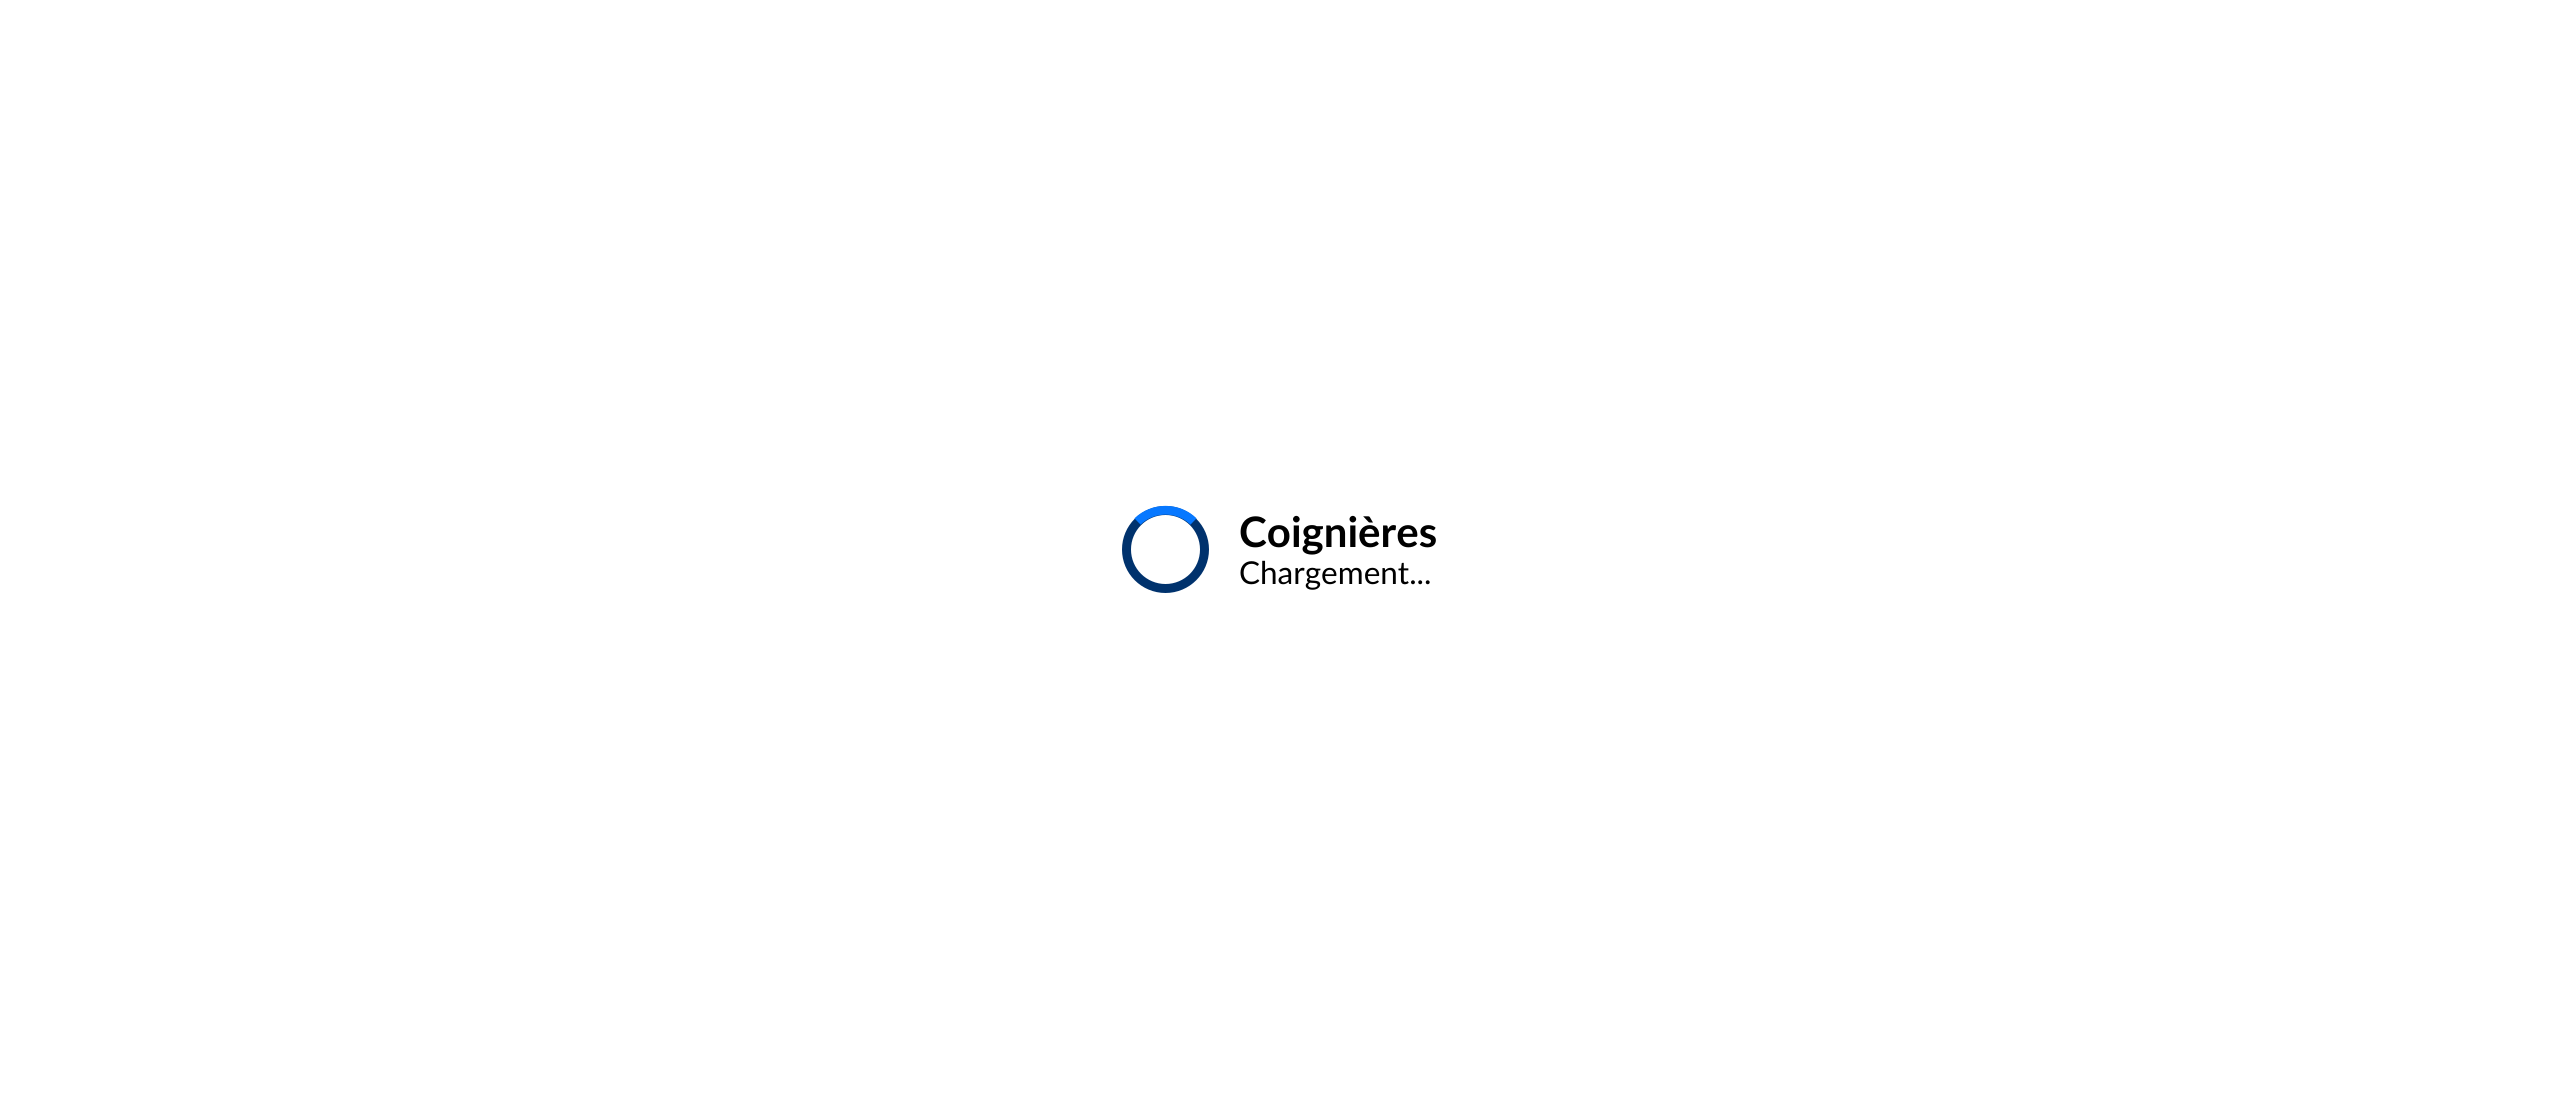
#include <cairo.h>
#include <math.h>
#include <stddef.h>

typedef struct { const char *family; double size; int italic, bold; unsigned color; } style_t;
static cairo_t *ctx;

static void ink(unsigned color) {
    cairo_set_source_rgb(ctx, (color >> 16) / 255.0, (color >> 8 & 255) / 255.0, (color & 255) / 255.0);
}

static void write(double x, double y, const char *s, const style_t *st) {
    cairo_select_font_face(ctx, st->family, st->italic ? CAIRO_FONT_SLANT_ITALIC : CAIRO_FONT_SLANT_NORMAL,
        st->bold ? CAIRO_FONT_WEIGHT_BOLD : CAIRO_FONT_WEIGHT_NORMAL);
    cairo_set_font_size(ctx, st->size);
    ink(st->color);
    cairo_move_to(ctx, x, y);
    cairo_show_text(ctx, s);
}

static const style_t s1 = {"Lato", 42, 0, 1, 0x000000};
static const style_t s2 = {"Lato", 31.5, 0, 0, 0x000000};

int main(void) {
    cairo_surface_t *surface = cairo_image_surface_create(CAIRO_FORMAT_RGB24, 2558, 1097);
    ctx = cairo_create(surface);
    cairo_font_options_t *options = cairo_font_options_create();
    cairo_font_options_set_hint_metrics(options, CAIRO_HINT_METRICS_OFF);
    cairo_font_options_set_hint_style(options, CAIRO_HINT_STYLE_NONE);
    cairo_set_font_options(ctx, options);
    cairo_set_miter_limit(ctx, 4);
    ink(0xffffff);
    cairo_paint(ctx);
    cairo_arc(ctx, 1165.5, 549.5, 39, 0, 2 * M_PI);
    ink(0x00326d);
    cairo_set_line_width(ctx, 9);
    cairo_stroke(ctx);
    cairo_new_path(ctx);
    cairo_move_to(ctx, 1137.5, 521.5);
    cairo_curve_to(ctx, 1153, 506.5, 1178, 506.5, 1193.5, 521.5);
    ink(0x0778ff);
    cairo_set_line_width(ctx, 8.8);
    cairo_stroke(ctx);
    write(1239, 547, "Coignières", &s1);
    write(1239, 584, "Chargement...", &s2);
    cairo_surface_write_to_png(surface, "screenshot.png");
    cairo_font_options_destroy(options);
    cairo_destroy(ctx);
    cairo_surface_destroy(surface);
    return 0;
}
